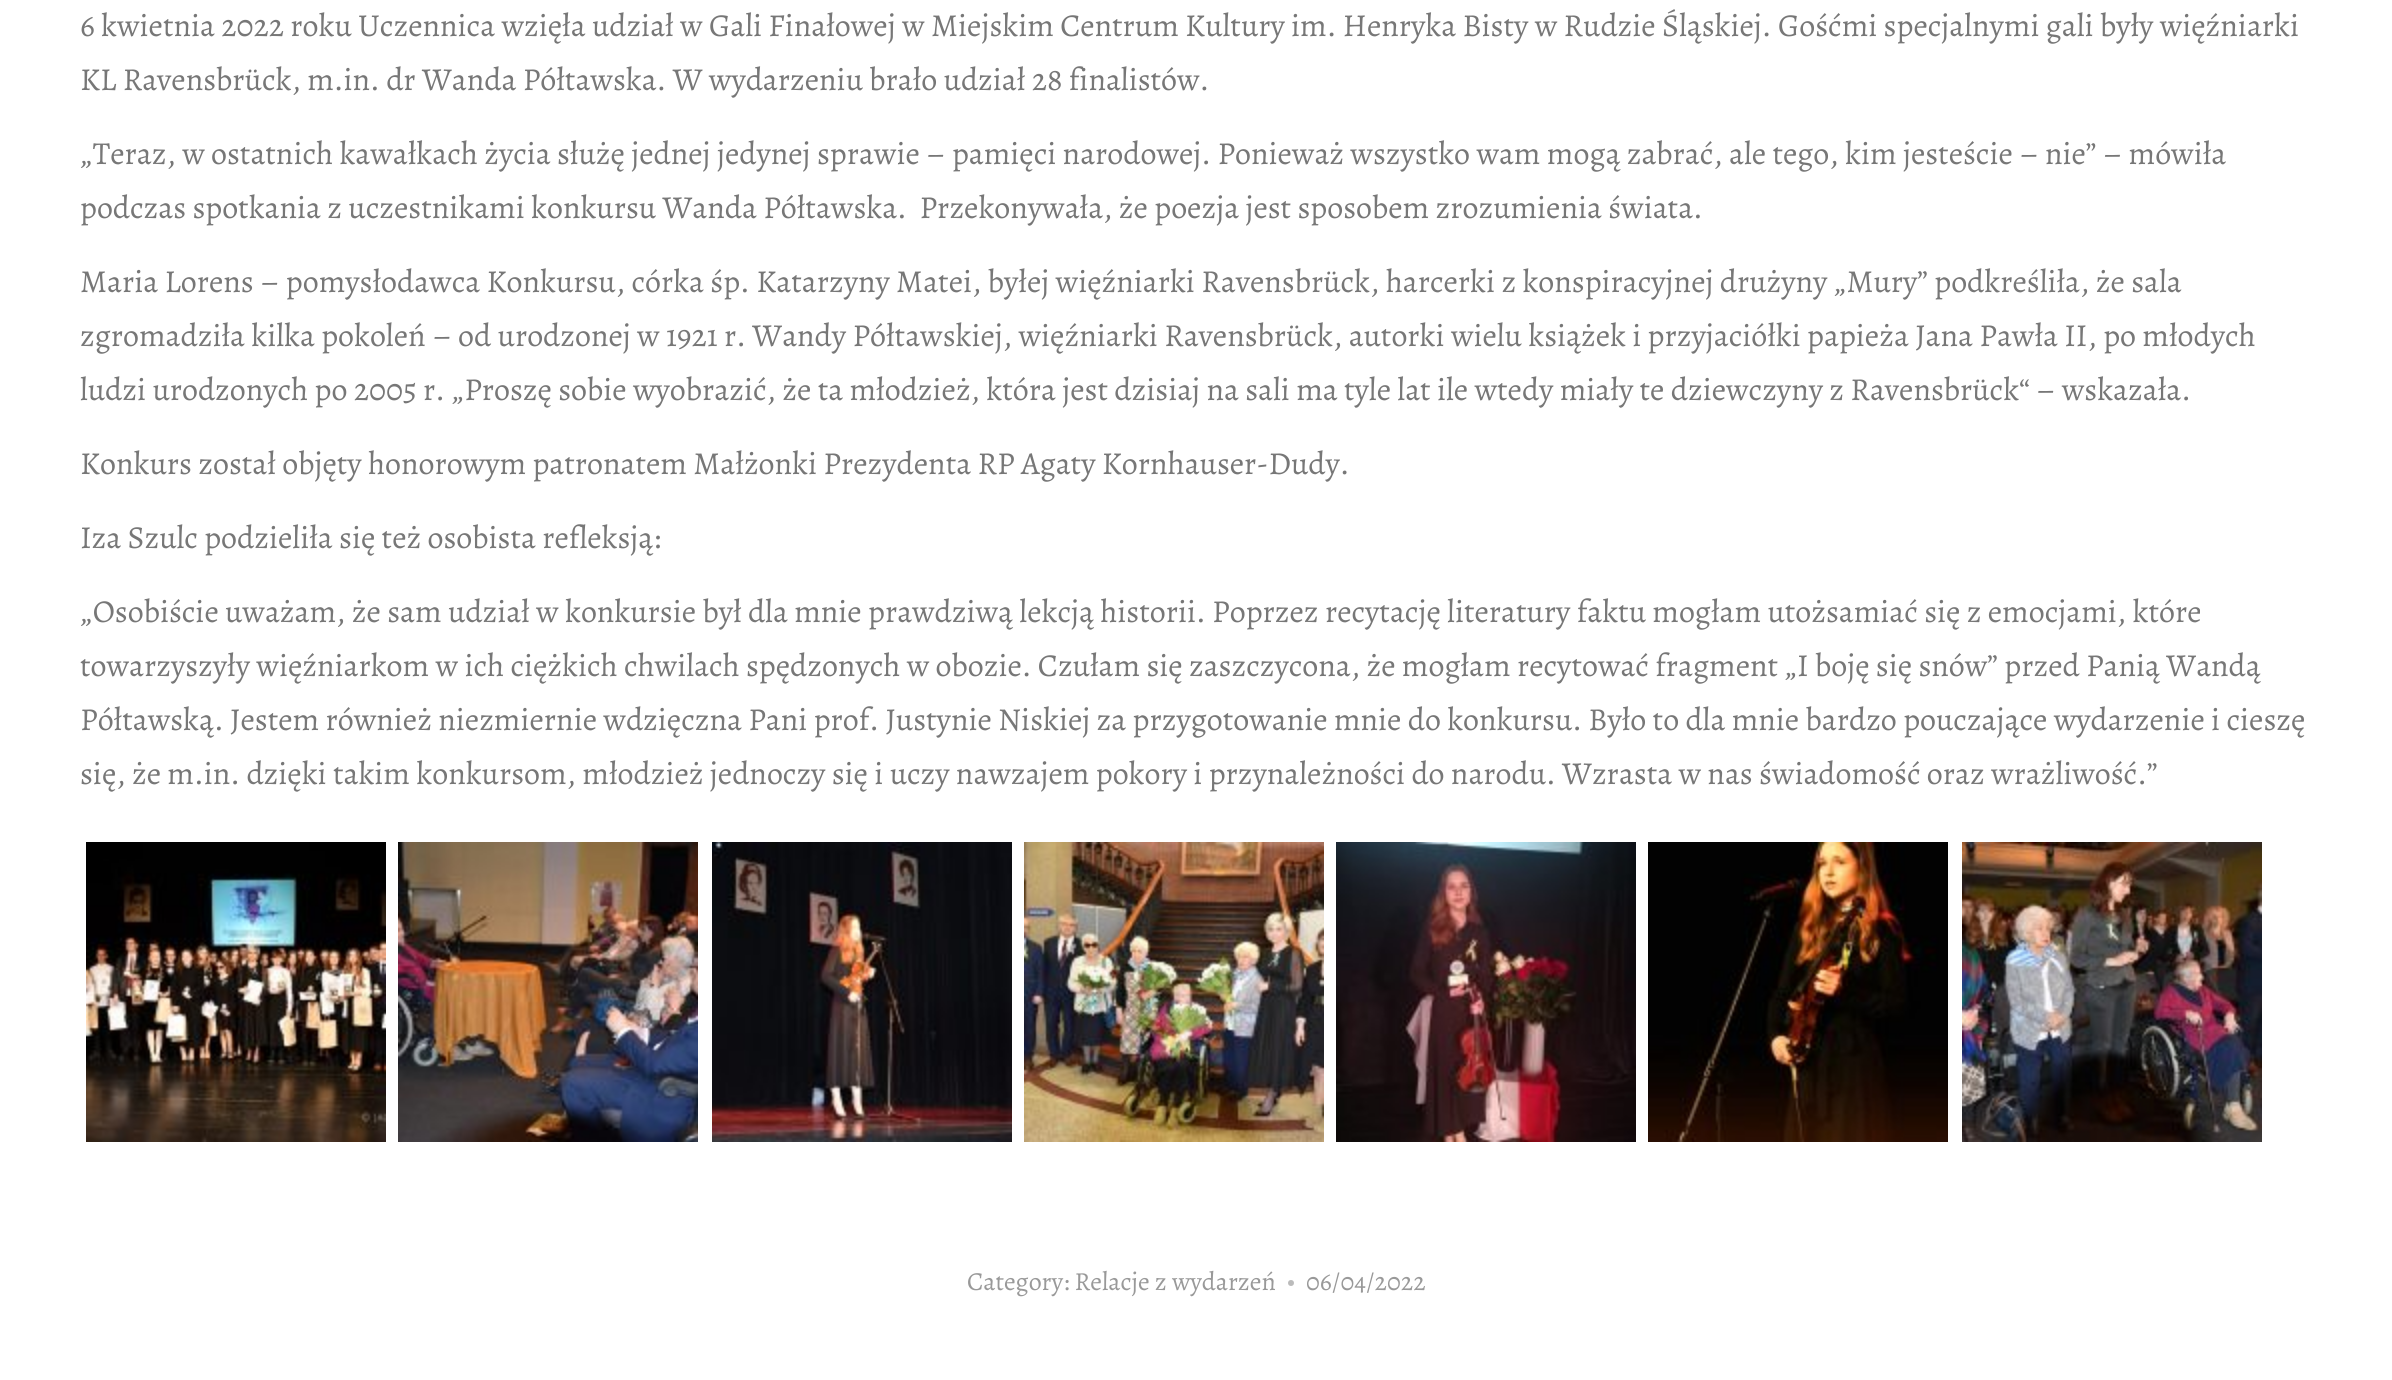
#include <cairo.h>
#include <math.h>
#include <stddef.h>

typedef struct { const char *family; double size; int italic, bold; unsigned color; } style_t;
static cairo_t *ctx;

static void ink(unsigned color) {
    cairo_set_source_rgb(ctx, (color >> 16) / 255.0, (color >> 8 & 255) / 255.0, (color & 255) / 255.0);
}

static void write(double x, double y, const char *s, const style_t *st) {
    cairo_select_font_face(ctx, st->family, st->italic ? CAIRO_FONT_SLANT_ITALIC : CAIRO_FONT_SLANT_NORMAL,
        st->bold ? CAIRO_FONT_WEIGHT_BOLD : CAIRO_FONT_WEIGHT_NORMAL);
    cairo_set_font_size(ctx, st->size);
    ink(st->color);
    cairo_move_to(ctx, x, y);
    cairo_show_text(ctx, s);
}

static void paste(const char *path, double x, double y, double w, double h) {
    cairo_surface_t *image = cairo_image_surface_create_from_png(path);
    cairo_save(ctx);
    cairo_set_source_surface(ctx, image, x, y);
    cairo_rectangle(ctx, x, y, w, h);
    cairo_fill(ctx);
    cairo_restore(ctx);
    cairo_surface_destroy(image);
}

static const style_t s1 = {"Alegreya", 32, 0, 0, 0x777777};
static const style_t s2 = {"Alegreya", 26, 0, 0, 0x999999};

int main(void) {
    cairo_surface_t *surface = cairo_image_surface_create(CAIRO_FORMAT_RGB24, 2392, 1380);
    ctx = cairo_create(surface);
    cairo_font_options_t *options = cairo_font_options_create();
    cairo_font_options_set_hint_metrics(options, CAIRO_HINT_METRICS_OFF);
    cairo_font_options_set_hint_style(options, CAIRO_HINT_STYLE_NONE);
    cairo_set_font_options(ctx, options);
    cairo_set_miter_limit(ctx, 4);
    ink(0xffffff);
    cairo_paint(ctx);
    write(80, 36, "6 kwietnia 2022 roku Uczennica wzięła udział w Gali Finałowej w Miejskim Centrum Kultury im. Henryka Bisty w Rudzie Śląskiej. Gośćmi specjalnymi gali były więźniarki", &s1);
    write(80, 90, "KL Ravensbrück, m.in. dr Wanda Półtawska. W wydarzeniu brało udział 28 finalistów.", &s1);
    write(80, 164, "„Teraz, w ostatnich kawałkach życia służę jednej jedynej sprawie – pamięci narodowej. Ponieważ wszystko wam mogą zabrać, ale tego, kim jesteście – nie” – mówiła", &s1);
    write(80, 218, "podczas spotkania z uczestnikami konkursu Wanda Półtawska.  Przekonywała, że poezja jest sposobem zrozumienia świata.", &s1);
    write(80, 292, "Maria Lorens – pomysłodawca Konkursu, córka śp. Katarzyny Matei, byłej więźniarki Ravensbrück, harcerki z konspiracyjnej drużyny „Mury” podkreśliła, że sala", &s1);
    write(80, 346, "zgromadziła kilka pokoleń – od urodzonej w 1921 r. Wandy Półtawskiej, więźniarki Ravensbrück, autorki wielu książek i przyjaciółki papieża Jana Pawła II, po młodych", &s1);
    write(80, 400, "ludzi urodzonych po 2005 r. „Proszę sobie wyobrazić, że ta młodzież, która jest dzisiaj na sali ma tyle lat ile wtedy miały te dziewczyny z Ravensbrück“ – wskazała.", &s1);
    write(80, 474, "Konkurs został objęty honorowym patronatem Małżonki Prezydenta RP Agaty Kornhauser-Dudy.", &s1);
    write(80, 548, "Iza Szulc podzieliła się też osobista refleksją:", &s1);
    write(80, 622, "„Osobiście uważam, że sam udział w konkursie był dla mnie prawdziwą lekcją historii. Poprzez recytację literatury faktu mogłam utożsamiać się z emocjami, które", &s1);
    write(80, 676, "towarzyszyły więźniarkom w ich ciężkich chwilach spędzonych w obozie. Czułam się zaszczycona, że mogłam recytować fragment „I boję się snów” przed Panią Wandą", &s1);
    write(80, 730, "Półtawską. Jestem również niezmiernie wdzięczna Pani prof. Justynie Niskiej za przygotowanie mnie do konkursu. Było to dla mnie bardzo pouczające wydarzenie i cieszę", &s1);
    write(80, 784, "się, że m.in. dzięki takim konkursom, młodzież jednoczy się i uczy nawzajem pokory i przynależności do narodu. Wzrasta w nas świadomość oraz wrażliwość.”", &s1);
    paste("pic1.png", 86, 842, 300, 300);
    paste("pic2.png", 398, 842, 300, 300);
    paste("pic3.png", 712, 842, 300, 300);
    paste("pic4.png", 1024, 842, 300, 300);
    paste("pic5.png", 1336, 842, 300, 300);
    paste("pic6.png", 1648, 842, 300, 300);
    paste("pic7.png", 1962, 842, 300, 300);
    write(967, 1290, "Category: Relacje z wydarzeń", &s2);
    ink(0xbbbbbb);
    cairo_new_path(ctx);
    cairo_arc(ctx, 1291, 1283, 3, 0, 2 * M_PI);
    cairo_fill(ctx);
    write(1306, 1290, "06/04/2022", &s2);
    cairo_surface_write_to_png(surface, "screenshot.png");
    cairo_font_options_destroy(options);
    cairo_destroy(ctx);
    cairo_surface_destroy(surface);
    return 0;
}
